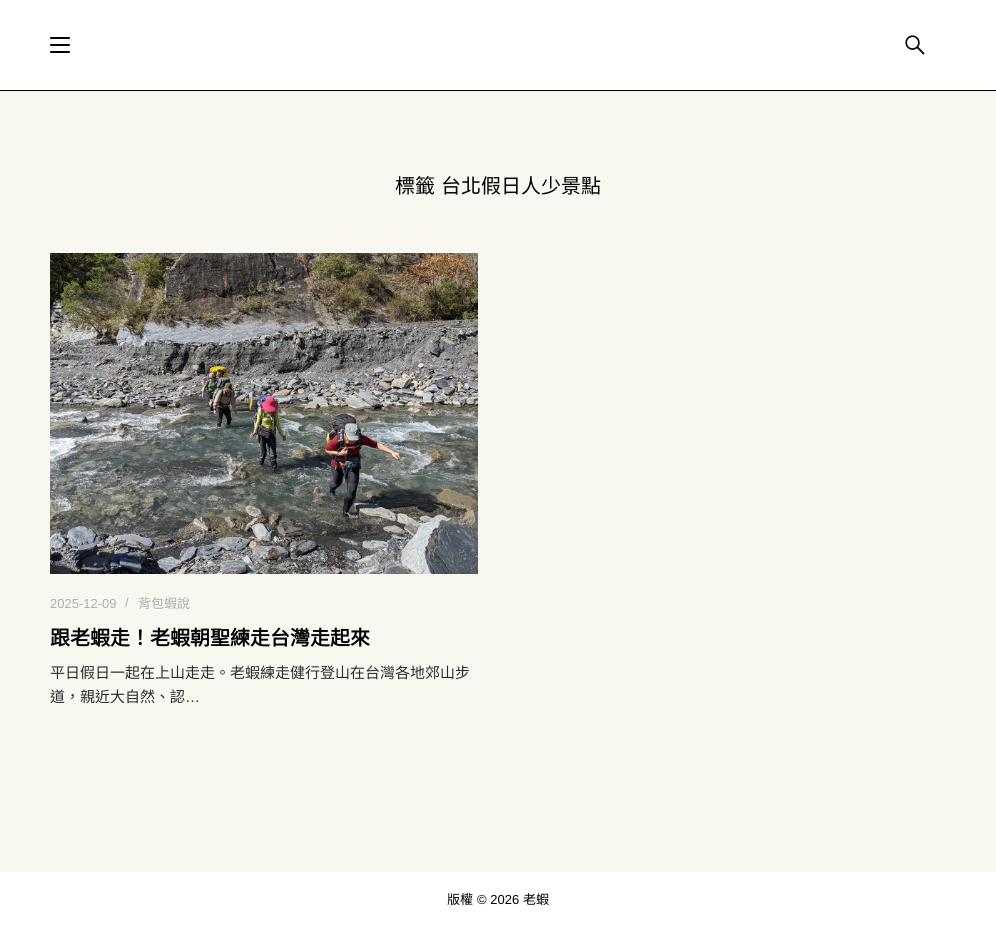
#include <cairo.h>
#include <math.h>
#include <stddef.h>

typedef struct { const char *family; double size; int italic, bold; unsigned color; } style_t;
static cairo_t *ctx;

static void ink(unsigned color) {
    cairo_set_source_rgb(ctx, (color >> 16) / 255.0, (color >> 8 & 255) / 255.0, (color & 255) / 255.0);
}

static void write(double x, double y, const char *s, const style_t *st) {
    cairo_select_font_face(ctx, st->family, st->italic ? CAIRO_FONT_SLANT_ITALIC : CAIRO_FONT_SLANT_NORMAL,
        st->bold ? CAIRO_FONT_WEIGHT_BOLD : CAIRO_FONT_WEIGHT_NORMAL);
    cairo_set_font_size(ctx, st->size);
    ink(st->color);
    cairo_move_to(ctx, x, y);
    cairo_show_text(ctx, s);
}

static void block(double x, double y, double w, double h, unsigned color) {
    ink(color);
    cairo_rectangle(ctx, x, y, w, h);
    cairo_fill(ctx);
}

static void round_path(double x, double y, double w, double h, double r) {
    cairo_new_sub_path(ctx);
    cairo_arc(ctx, x + w - r, y + h - r, r, 0, M_PI / 2);
    cairo_arc(ctx, x + r, y + h - r, r, M_PI / 2, M_PI);
    cairo_arc(ctx, x + r, y + r, r, M_PI, 1.5 * M_PI);
    cairo_arc(ctx, x + w - r, y + r, r, 1.5 * M_PI, 2 * M_PI);
    cairo_close_path(ctx);
}

static void paste(const char *path, double x, double y, double w, double h) {
    cairo_surface_t *image = cairo_image_surface_create_from_png(path);
    cairo_save(ctx);
    cairo_set_source_surface(ctx, image, x, y);
    cairo_rectangle(ctx, x, y, w, h);
    cairo_fill(ctx);
    cairo_restore(ctx);
    cairo_surface_destroy(image);
}

static const style_t s1 = {"Noto Sans CJK TC", 20, 0, 0, 0x000000};
static const style_t s2 = {"Liberation Sans", 13, 0, 0, 0xadadad};
static const style_t s3 = {"Noto Sans CJK TC", 13, 0, 0, 0xadadad};
static const style_t s4 = {"Noto Sans CJK TC", 20, 0, 1, 0x000000};
static const style_t s5 = {"Noto Sans CJK TC", 15, 0, 0, 0x2c2c2c};
static const style_t s6 = {"Liberation Sans", 15, 0, 0, 0x2c2c2c};
static const style_t s7 = {"Noto Sans CJK TC", 13, 0, 0, 0x000000};
static const style_t s8 = {"Liberation Sans", 13, 0, 0, 0x000000};

int main(void) {
    cairo_surface_t *surface = cairo_image_surface_create(CAIRO_FORMAT_RGB24, 996, 928);
    ctx = cairo_create(surface);
    cairo_font_options_t *options = cairo_font_options_create();
    cairo_font_options_set_hint_metrics(options, CAIRO_HINT_METRICS_OFF);
    cairo_font_options_set_hint_style(options, CAIRO_HINT_STYLE_NONE);
    cairo_set_font_options(ctx, options);
    cairo_set_miter_limit(ctx, 4);
    ink(0xf8f7f0);
    cairo_paint(ctx);
    block(0, 0, 996, 90, 0xffffff);
    block(0, 90, 996, 1, 0x000000);
    round_path(50, 37, 20, 2, 1);
    cairo_fill(ctx);
    round_path(50, 44, 20, 2, 1);
    cairo_fill(ctx);
    round_path(50, 51, 20, 2, 1);
    cairo_fill(ctx);
    paste("pic1.png", 905, 35, 20, 20);
    write(395, 193, "標籤", &s1);
    write(441, 193, "台北假日人少景點", &s1);
    paste("pic2.png", 50, 253, 428, 321);
    write(50, 608, "2025-12-09", &s2);
    write(125, 607, "/", &s2);
    write(138, 608, "背包蝦說", &s3);
    write(50, 645, "跟老蝦走！老蝦朝聖練走台灣走起來", &s4);
    write(50, 678, "平日假日一起在上山走走。老蝦練走健行登山在台灣各地郊山步", &s5);
    write(50, 702, "道，親近大自然、認", &s5);
    write(185, 702, "…", &s6);
    block(0, 872, 996, 56, 0xffffff);
    write(447, 904, "版權", &s7);
    write(477, 904, "© 2026", &s8);
    write(523, 904, "老蝦", &s7);
    cairo_surface_write_to_png(surface, "screenshot.png");
    cairo_font_options_destroy(options);
    cairo_destroy(ctx);
    cairo_surface_destroy(surface);
    return 0;
}
